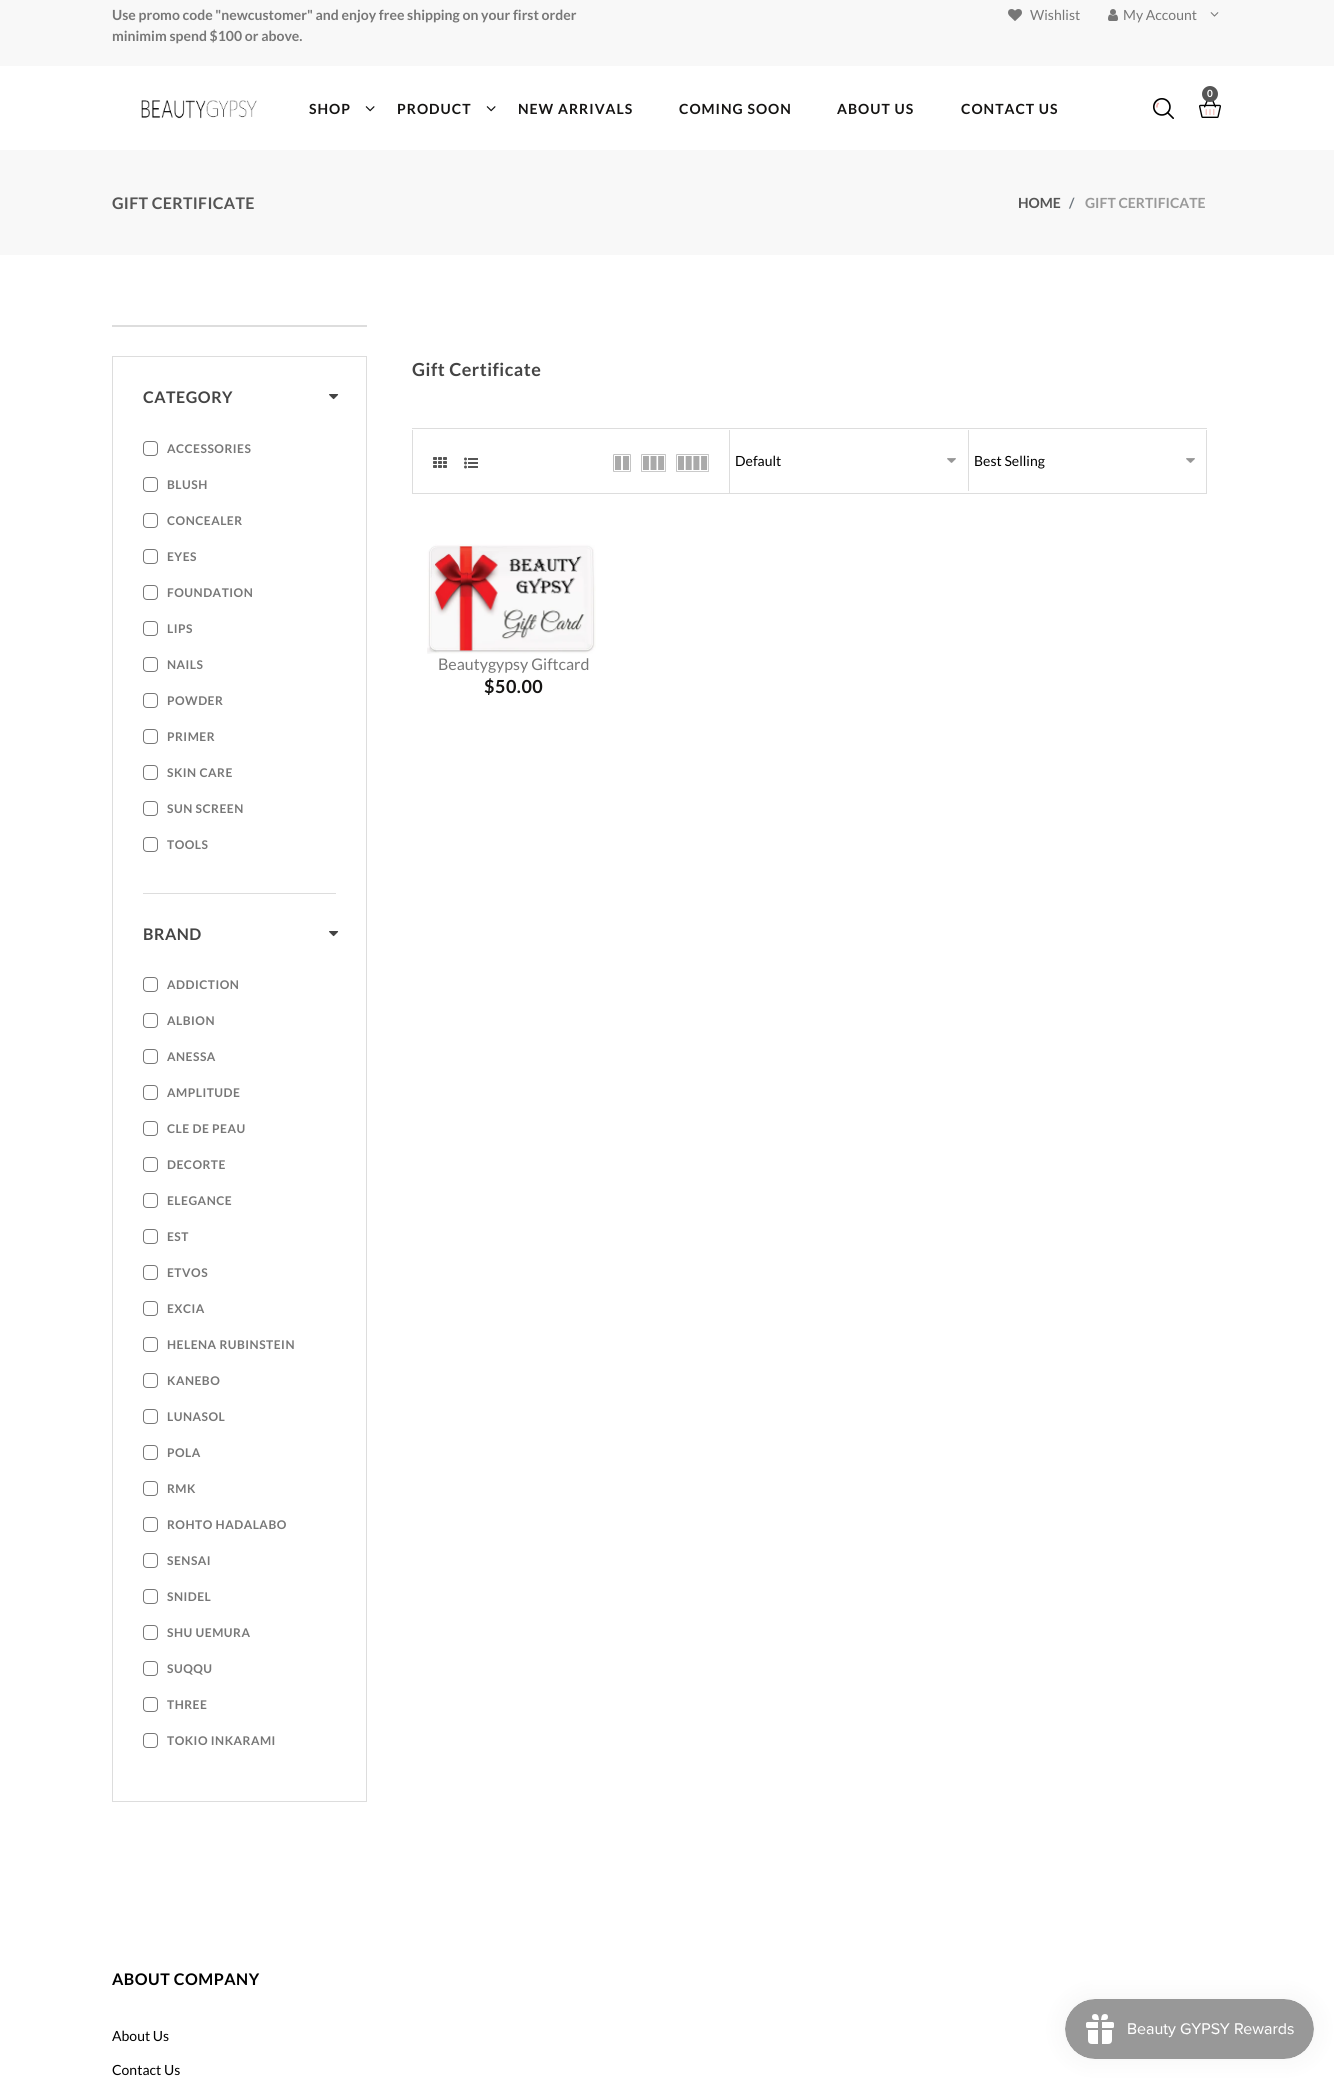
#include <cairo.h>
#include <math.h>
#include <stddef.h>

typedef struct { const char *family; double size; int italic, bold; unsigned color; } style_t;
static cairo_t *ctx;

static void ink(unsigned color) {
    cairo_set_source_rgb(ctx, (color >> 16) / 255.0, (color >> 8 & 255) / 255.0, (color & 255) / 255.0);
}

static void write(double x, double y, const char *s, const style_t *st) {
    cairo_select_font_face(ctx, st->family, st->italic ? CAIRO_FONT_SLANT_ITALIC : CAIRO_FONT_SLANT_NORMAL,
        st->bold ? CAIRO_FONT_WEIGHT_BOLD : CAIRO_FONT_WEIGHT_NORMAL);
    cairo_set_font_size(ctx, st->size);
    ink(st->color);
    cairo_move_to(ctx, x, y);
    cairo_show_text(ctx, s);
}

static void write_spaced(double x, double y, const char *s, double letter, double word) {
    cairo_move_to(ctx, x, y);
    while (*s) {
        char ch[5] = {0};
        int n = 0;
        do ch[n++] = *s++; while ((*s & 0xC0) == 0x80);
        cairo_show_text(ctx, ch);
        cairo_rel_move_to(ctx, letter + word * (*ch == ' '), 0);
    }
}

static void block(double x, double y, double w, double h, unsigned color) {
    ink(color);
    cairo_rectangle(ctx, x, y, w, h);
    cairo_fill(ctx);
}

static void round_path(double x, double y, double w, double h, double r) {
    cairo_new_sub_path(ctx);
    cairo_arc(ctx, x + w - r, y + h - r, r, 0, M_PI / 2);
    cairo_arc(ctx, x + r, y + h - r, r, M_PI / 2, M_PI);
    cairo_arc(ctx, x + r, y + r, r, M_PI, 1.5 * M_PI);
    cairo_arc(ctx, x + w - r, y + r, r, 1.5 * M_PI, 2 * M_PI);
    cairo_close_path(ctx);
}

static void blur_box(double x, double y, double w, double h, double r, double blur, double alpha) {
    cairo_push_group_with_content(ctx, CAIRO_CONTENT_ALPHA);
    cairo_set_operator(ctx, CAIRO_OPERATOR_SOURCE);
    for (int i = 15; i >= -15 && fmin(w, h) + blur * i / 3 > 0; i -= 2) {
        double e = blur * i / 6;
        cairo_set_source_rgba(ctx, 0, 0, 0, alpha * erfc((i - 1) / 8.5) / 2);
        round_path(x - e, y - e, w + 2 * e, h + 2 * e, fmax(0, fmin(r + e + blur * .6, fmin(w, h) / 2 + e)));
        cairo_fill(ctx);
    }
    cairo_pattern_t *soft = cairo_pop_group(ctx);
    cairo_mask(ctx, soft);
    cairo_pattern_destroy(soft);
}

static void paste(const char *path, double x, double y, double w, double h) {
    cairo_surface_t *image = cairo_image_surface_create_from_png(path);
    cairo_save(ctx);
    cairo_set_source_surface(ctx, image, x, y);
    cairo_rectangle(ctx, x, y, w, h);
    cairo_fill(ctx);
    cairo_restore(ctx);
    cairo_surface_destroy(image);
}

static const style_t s1 = {"Lato", 14, 0, 1, 0x777777};
static const style_t s2 = {"Lato", 14, 0, 0, 0x777777};
static const style_t s3 = {"Lato", 10, 0, 1, 0xffffff};
static const style_t s4 = {"Lato", 14, 0, 1, 0x555555};
static const style_t s5 = {"Lato", 14, 0, 1, 0x6c757d};
static const style_t s6 = {"Lato", 14, 0, 1, 0x999999};
static const style_t s7 = {"Lato", 14, 0, 0, 0x000000};
static const style_t s8 = {"Lato", 16, 0, 0, 0x777777};

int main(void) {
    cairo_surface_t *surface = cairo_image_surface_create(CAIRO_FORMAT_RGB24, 1334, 2079);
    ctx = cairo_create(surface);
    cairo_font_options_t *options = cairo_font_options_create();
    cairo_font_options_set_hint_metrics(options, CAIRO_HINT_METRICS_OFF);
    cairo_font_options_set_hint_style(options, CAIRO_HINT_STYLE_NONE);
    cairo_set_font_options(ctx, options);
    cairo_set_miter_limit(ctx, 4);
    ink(0xffffff);
    cairo_paint(ctx);
    block(0, 0, 1334, 66, 0xf8f8f8);
    write(112, 20, "Use promo code \"newcustomer\" and enjoy free shipping on your first order", &s1);
    write(112, 41, "minimim spend $100 or above.", &s1);
    paste("pic1.png", 1008, 9, 14, 12);
    write(1030, 20, "Wishlist", &s2);
    paste("pic2.png", 1108, 9, 10, 12);
    write(1123, 20, "My Account", &s2);
    paste("pic3.png", 1210, 12, 9, 5);
    paste("pic4.png", 1199, 100, 22, 18);
    ink(0x555555);
    cairo_arc(ctx, 1210, 94, 8, 0, 2 * M_PI);
    cairo_fill(ctx);
    write(1207, 97, "0", &s3);
    paste("pic5.png", 1153, 98, 21, 21);
    paste("pic6.png", 141, 100, 116, 19);
    cairo_set_font_size(ctx, 14);
    ink(0x151413);
    write_spaced(309, 114, "SHOP", 1, 0);
    paste("pic7.png", 365, 106, 10, 6);
    write_spaced(397, 114, "PRODUCT", 1, 0);
    paste("pic7.png", 486, 106, 10, 6);
    write_spaced(518, 114, "NEW ARRIVALS", 1, 0);
    write_spaced(679, 114, "COMING SOON", 1, 0);
    write_spaced(837, 114, "ABOUT US", 1, 0);
    write_spaced(961, 114, "CONTACT US", 1, 0);
    block(0, 150, 1334, 105, 0xf8f8f8);
    cairo_set_font_size(ctx, 16);
    ink(0x555555);
    write_spaced(112, 209, "GIFT CERTIFICATE", 0.3, 0);
    write(1018, 208, "HOME", &s4);
    write(1069, 208, "/", &s5);
    write(1085, 208, "GIFT CERTIFICATE", &s6);
    block(112, 325, 255, 2, 0xdddddd);
    cairo_rectangle(ctx, 112.5, 356.5, 254, 1445);
    cairo_set_line_width(ctx, 1);
    cairo_stroke(ctx);
    block(143, 893, 193, 1, 0xdddddd);
    cairo_set_font_size(ctx, 16);
    ink(0x444444);
    write_spaced(143, 403, "CATEGORY", 0.5, 0);
    paste("pic8.png", 329, 394, 10, 6);
    round_path(143.5, 441.5, 14, 14, 3.5);
    ink(0x777777);
    cairo_stroke(ctx);
    cairo_set_font_size(ctx, 12);
    write_spaced(167, 453, "ACCESSORIES", 0.5, 0);
    round_path(143.5, 477.5, 14, 14, 3.5);
    cairo_stroke(ctx);
    write_spaced(167, 489, "BLUSH", 0.5, 0);
    round_path(143.5, 513.5, 14, 14, 3.5);
    cairo_stroke(ctx);
    write_spaced(167, 525, "CONCEALER", 0.5, 0);
    round_path(143.5, 549.5, 14, 14, 3.5);
    cairo_stroke(ctx);
    write_spaced(167, 561, "EYES", 0.5, 0);
    round_path(143.5, 585.5, 14, 14, 3.5);
    cairo_stroke(ctx);
    write_spaced(167, 597, "FOUNDATION", 0.5, 0);
    round_path(143.5, 621.5, 14, 14, 3.5);
    cairo_stroke(ctx);
    write_spaced(167, 633, "LIPS", 0.5, 0);
    round_path(143.5, 657.5, 14, 14, 3.5);
    cairo_stroke(ctx);
    write_spaced(167, 669, "NAILS", 0.5, 0);
    round_path(143.5, 693.5, 14, 14, 3.5);
    cairo_stroke(ctx);
    write_spaced(167, 705, "POWDER", 0.5, 0);
    round_path(143.5, 729.5, 14, 14, 3.5);
    cairo_stroke(ctx);
    write_spaced(167, 741, "PRIMER", 0.5, 0);
    round_path(143.5, 765.5, 14, 14, 3.5);
    cairo_stroke(ctx);
    write_spaced(167, 777, "SKIN CARE", 0.5, 0);
    round_path(143.5, 801.5, 14, 14, 3.5);
    cairo_stroke(ctx);
    write_spaced(167, 813, "SUN SCREEN", 0.5, 0);
    round_path(143.5, 837.5, 14, 14, 3.5);
    cairo_stroke(ctx);
    write_spaced(167, 849, "TOOLS", 0.5, 0);
    cairo_set_font_size(ctx, 16);
    ink(0x444444);
    write_spaced(143, 940, "BRAND", 0.5, 0);
    paste("pic8.png", 329, 931, 10, 6);
    round_path(143.5, 977.5, 14, 14, 3.5);
    ink(0x777777);
    cairo_stroke(ctx);
    cairo_set_font_size(ctx, 12);
    write_spaced(167, 989, "ADDICTION", 0.5, 0);
    round_path(143.5, 1013.5, 14, 14, 3.5);
    cairo_stroke(ctx);
    write_spaced(167, 1025, "ALBION", 0.5, 0);
    round_path(143.5, 1049.5, 14, 14, 3.5);
    cairo_stroke(ctx);
    write_spaced(167, 1061, "ANESSA", 0.5, 0);
    round_path(143.5, 1085.5, 14, 14, 3.5);
    cairo_stroke(ctx);
    write_spaced(167, 1097, "AMPLITUDE", 0.5, 0);
    round_path(143.5, 1121.5, 14, 14, 3.5);
    cairo_stroke(ctx);
    write_spaced(167, 1133, "CLE DE PEAU", 0.5, 0);
    round_path(143.5, 1157.5, 14, 14, 3.5);
    cairo_stroke(ctx);
    write_spaced(167, 1169, "DECORTE", 0.5, 0);
    round_path(143.5, 1193.5, 14, 14, 3.5);
    cairo_stroke(ctx);
    write_spaced(167, 1205, "ELEGANCE", 0.5, 0);
    round_path(143.5, 1229.5, 14, 14, 3.5);
    cairo_stroke(ctx);
    write_spaced(167, 1241, "EST", 0.5, 0);
    round_path(143.5, 1265.5, 14, 14, 3.5);
    cairo_stroke(ctx);
    write_spaced(167, 1277, "ETVOS", 0.5, 0);
    round_path(143.5, 1301.5, 14, 14, 3.5);
    cairo_stroke(ctx);
    write_spaced(167, 1313, "EXCIA", 0.5, 0);
    round_path(143.5, 1337.5, 14, 14, 3.5);
    cairo_stroke(ctx);
    write_spaced(167, 1349, "HELENA RUBINSTEIN", 0.5, 0);
    round_path(143.5, 1373.5, 14, 14, 3.5);
    cairo_stroke(ctx);
    write_spaced(167, 1385, "KANEBO", 0.5, 0);
    round_path(143.5, 1409.5, 14, 14, 3.5);
    cairo_stroke(ctx);
    write_spaced(167, 1421, "LUNASOL", 0.5, 0);
    round_path(143.5, 1445.5, 14, 14, 3.5);
    cairo_stroke(ctx);
    write_spaced(167, 1457, "POLA", 0.5, 0);
    round_path(143.5, 1481.5, 14, 14, 3.5);
    cairo_stroke(ctx);
    write_spaced(167, 1493, "RMK", 0.5, 0);
    round_path(143.5, 1517.5, 14, 14, 3.5);
    cairo_stroke(ctx);
    write_spaced(167, 1529, "ROHTO HADALABO", 0.5, 0);
    round_path(143.5, 1553.5, 14, 14, 3.5);
    cairo_stroke(ctx);
    write_spaced(167, 1565, "SENSAI", 0.5, 0);
    round_path(143.5, 1589.5, 14, 14, 3.5);
    cairo_stroke(ctx);
    write_spaced(167, 1601, "SNIDEL", 0.5, 0);
    round_path(143.5, 1625.5, 14, 14, 3.5);
    cairo_stroke(ctx);
    write_spaced(167, 1637, "SHU UEMURA", 0.5, 0);
    round_path(143.5, 1661.5, 14, 14, 3.5);
    cairo_stroke(ctx);
    write_spaced(167, 1673, "SUQQU", 0.5, 0);
    round_path(143.5, 1697.5, 14, 14, 3.5);
    cairo_stroke(ctx);
    write_spaced(167, 1709, "THREE", 0.5, 0);
    round_path(143.5, 1733.5, 14, 14, 3.5);
    cairo_stroke(ctx);
    write_spaced(167, 1745, "TOKIO INKARAMI", 0.5, 0);
    cairo_set_font_size(ctx, 18);
    ink(0x444444);
    write_spaced(412, 376, "Gift Certificate", 0.5, 0);
    block(412, 428, 795, 1, 0xdddddd);
    block(412, 493, 795, 1, 0xdddddd);
    block(412, 430, 1, 63, 0xdddddd);
    paste("pic9.png", 433, 457, 14, 11);
    paste("pic10.png", 464, 457, 14, 12);
    block(729, 430, 1, 63, 0xdddddd);
    paste("pic11.png", 613, 454, 18, 18);
    paste("pic12.png", 641, 454, 25, 18);
    paste("pic13.png", 676, 454, 33, 18);
    paste("pic14.png", 947, 458, 9, 5);
    block(968, 430, 1, 61, 0xdddddd);
    write(735, 466, "Default", &s7);
    block(1206, 430, 1, 63, 0xdddddd);
    paste("pic14.png", 1186, 458, 9, 5);
    write(974, 466, "Best Selling", &s7);
    paste("pic15.png", 427, 544, 169, 110);
    write(438, 670, "Beautygypsy Giftcard", &s8);
    cairo_select_font_face(ctx, "Lato", CAIRO_FONT_SLANT_NORMAL, CAIRO_FONT_WEIGHT_BOLD);
    cairo_set_font_size(ctx, 18);
    ink(0x151413);
    write_spaced(484, 693, "$50.00", 0.5, 0);
    cairo_set_font_size(ctx, 16);
    ink(0x000000);
    write_spaced(112, 1985, "ABOUT COMPANY", 0.5, 0);
    write(112, 2041, "About Us", &s7);
    write(112, 2075, "Contact Us", &s7);
    ink(0x000000);
    blur_box(1065, 1999, 249, 60, 30, 12.5, 0.05);
    paste("pic16.png", 1065, 1999, 249, 60);
    cairo_surface_write_to_png(surface, "screenshot.png");
    cairo_font_options_destroy(options);
    cairo_destroy(ctx);
    cairo_surface_destroy(surface);
    return 0;
}
